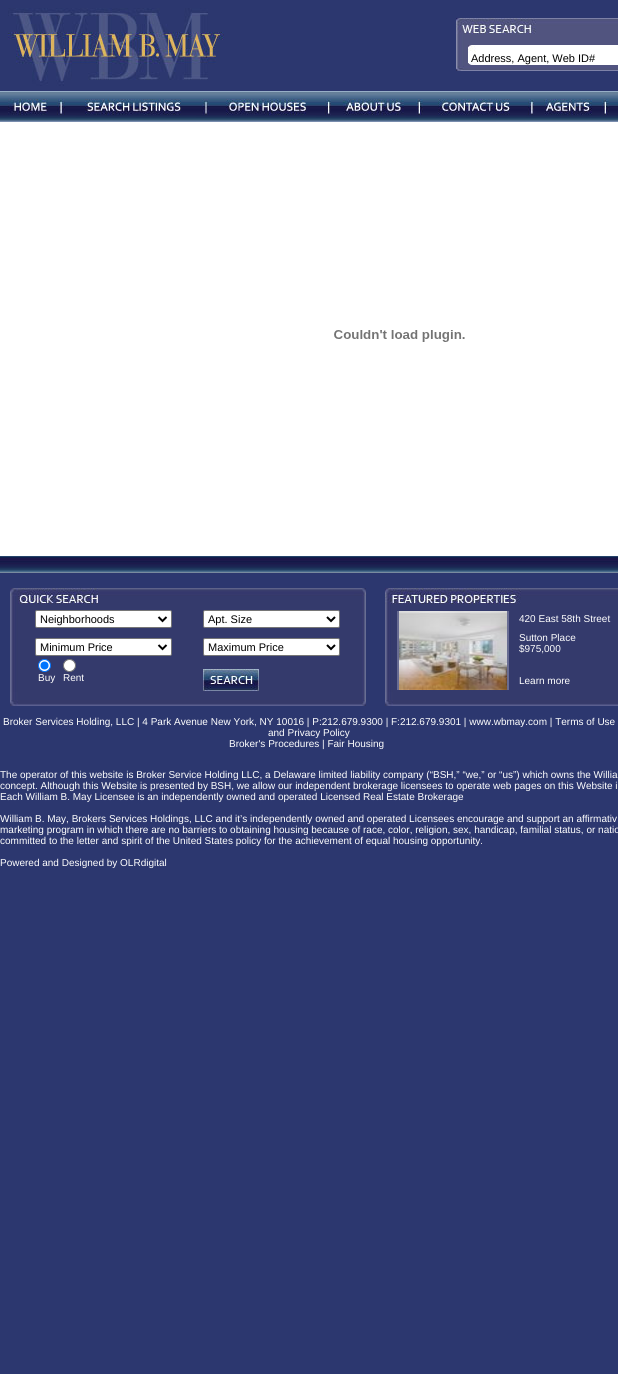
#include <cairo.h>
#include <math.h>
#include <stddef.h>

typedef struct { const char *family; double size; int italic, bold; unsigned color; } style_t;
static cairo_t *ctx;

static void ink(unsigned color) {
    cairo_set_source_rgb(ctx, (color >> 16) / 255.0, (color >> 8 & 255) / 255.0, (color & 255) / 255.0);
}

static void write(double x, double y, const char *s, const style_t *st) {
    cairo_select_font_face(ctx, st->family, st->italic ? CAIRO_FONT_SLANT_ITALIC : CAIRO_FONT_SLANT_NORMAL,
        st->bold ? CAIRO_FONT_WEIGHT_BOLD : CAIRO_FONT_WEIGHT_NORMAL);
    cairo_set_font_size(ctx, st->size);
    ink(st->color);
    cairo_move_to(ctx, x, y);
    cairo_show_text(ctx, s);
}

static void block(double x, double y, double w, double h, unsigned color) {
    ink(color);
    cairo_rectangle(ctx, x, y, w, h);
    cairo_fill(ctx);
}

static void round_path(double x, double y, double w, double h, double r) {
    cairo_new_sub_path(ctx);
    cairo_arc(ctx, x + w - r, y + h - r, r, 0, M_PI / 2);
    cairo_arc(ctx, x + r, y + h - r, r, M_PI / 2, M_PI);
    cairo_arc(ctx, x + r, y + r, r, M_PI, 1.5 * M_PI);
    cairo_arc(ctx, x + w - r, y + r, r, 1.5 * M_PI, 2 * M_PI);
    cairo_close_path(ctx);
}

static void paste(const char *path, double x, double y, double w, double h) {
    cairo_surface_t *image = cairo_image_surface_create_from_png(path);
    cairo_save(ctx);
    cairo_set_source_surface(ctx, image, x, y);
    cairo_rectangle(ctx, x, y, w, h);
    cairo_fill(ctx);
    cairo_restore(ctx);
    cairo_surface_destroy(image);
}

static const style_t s1 = {"Liberation Sans", 11, 0, 0, 0x000000};
static const style_t s2 = {"Liberation Sans", 10, 0, 0, 0xffffff};

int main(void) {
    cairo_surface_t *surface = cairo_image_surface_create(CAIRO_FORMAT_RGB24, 618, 1374);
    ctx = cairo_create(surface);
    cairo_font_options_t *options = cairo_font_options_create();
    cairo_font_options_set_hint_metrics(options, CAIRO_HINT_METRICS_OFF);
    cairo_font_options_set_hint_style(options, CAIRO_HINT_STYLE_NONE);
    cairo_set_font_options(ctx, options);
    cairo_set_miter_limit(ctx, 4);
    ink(0x2c376f);
    cairo_paint(ctx);
    paste("pic1.png", 8, 8, 216, 78);
    paste("pic2.png", 456, 18, 162, 53);
    paste("pic3.png", 468, 45, 150, 20);
    write(471, 62, "Address, Agent, Web ID#", &s1);
    paste("pic4.png", 0, 91, 618, 31);
    paste("pic5.png", 8, 99, 40, 16);
    paste("pic6.png", 57, 99, 8, 16);
    paste("pic7.png", 85, 99, 96, 16);
    paste("pic8.png", 202, 99, 7, 16);
    paste("pic9.png", 226, 99, 80, 16);
    paste("pic10.png", 325, 99, 6, 16);
    paste("pic11.png", 343, 99, 61, 16);
    paste("pic12.png", 416, 99, 7, 16);
    paste("pic13.png", 438, 99, 72, 16);
    paste("pic14.png", 528, 99, 6, 16);
    paste("pic15.png", 544, 99, 48, 16);
    paste("pic12.png", 602, 99, 7, 16);
    block(0, 122, 618, 434, 0xffffff);
    paste("pic16.png", 334, 330, 131, 12);
    paste("pic17.png", 0, 556, 618, 17);
    paste("pic18.png", 10, 588, 356, 118);
    round_path(35.5, 610.5, 136, 17, 1.5);
    cairo_fill_preserve(ctx);
    ink(0x767676);
    cairo_set_line_width(ctx, 1);
    cairo_stroke(ctx);
    cairo_new_path(ctx);
    cairo_move_to(ctx, 158.5, 617);
    cairo_line_to(ctx, 162.5, 621);
    cairo_line_to(ctx, 166.5, 617);
    ink(0x000000);
    cairo_set_line_width(ctx, 2);
    cairo_stroke(ctx);
    write(40, 623, "Neighborhoods", &s1);
    ink(0xffffff);
    round_path(203.5, 610.5, 136, 17, 1.5);
    cairo_fill_preserve(ctx);
    ink(0x767676);
    cairo_set_line_width(ctx, 1);
    cairo_stroke(ctx);
    cairo_new_path(ctx);
    cairo_move_to(ctx, 327, 617);
    cairo_line_to(ctx, 331, 621);
    cairo_line_to(ctx, 335, 617);
    ink(0x000000);
    cairo_set_line_width(ctx, 2);
    cairo_stroke(ctx);
    write(208, 623, "Apt. Size", &s1);
    ink(0xffffff);
    round_path(35.5, 638.5, 136, 17, 1.5);
    cairo_fill_preserve(ctx);
    ink(0x767676);
    cairo_set_line_width(ctx, 1);
    cairo_stroke(ctx);
    cairo_new_path(ctx);
    cairo_move_to(ctx, 158.5, 645);
    cairo_line_to(ctx, 162.5, 649);
    cairo_line_to(ctx, 166.5, 645);
    ink(0x000000);
    cairo_set_line_width(ctx, 2);
    cairo_stroke(ctx);
    write(40, 651, "Minimum Price", &s1);
    ink(0xffffff);
    round_path(203.5, 638.5, 136, 17, 1.5);
    cairo_fill_preserve(ctx);
    ink(0x767676);
    cairo_set_line_width(ctx, 1);
    cairo_stroke(ctx);
    cairo_new_path(ctx);
    cairo_move_to(ctx, 327, 645);
    cairo_line_to(ctx, 331, 649);
    cairo_line_to(ctx, 335, 645);
    ink(0x000000);
    cairo_set_line_width(ctx, 2);
    cairo_stroke(ctx);
    write(208, 651, "Maximum Price", &s1);
    ink(0xffffff);
    cairo_new_path(ctx);
    cairo_arc(ctx, 44.5, 665.5, 6, 0, 2 * M_PI);
    cairo_fill_preserve(ctx);
    ink(0x0075ff);
    cairo_set_line_width(ctx, 1);
    cairo_stroke(ctx);
    cairo_arc(ctx, 44.5, 665.5, 4, 0, 2 * M_PI);
    cairo_fill(ctx);
    write(38, 681, "Buy", &s2);
    cairo_new_path(ctx);
    cairo_arc(ctx, 69.5, 665.5, 6, 0, 2 * M_PI);
    cairo_fill_preserve(ctx);
    ink(0x767676);
    cairo_stroke(ctx);
    write(63, 681, "Rent", &s2);
    paste("pic19.png", 203, 669, 56, 22);
    paste("pic20.png", 385, 588, 233, 118);
    block(397, 611, 112, 79, 0x686c92);
    paste("pic21.png", 399, 611, 108, 79);
    write(519, 622, "420 East 58th Street", &s2);
    write(519, 641, "Sutton Place", &s2);
    write(519, 652, "$975,000", &s2);
    write(519, 684, "Learn more", &s2);
    write(3, 725, "Broker Services Holding, LLC | 4 Park Avenue New York, NY 10016 | P:212.679.9300 | F:212.679.9301 | www.wbmay.com | Terms of Use", &s2);
    write(268, 736, "and Privacy Policy", &s2);
    write(229, 747, "Broker's Procedures | Fair Housing", &s2);
    write(0, 778, "The operator of this website is Broker Service Holding LLC, a Delaware limited liability company (“BSH,” “we,” or “us”) which owns the Willia", &s2);
    write(0, 789, "concept. Although this Website is presented by BSH, we allow our independent brokerage licensees to operate web pages on this Website i", &s2);
    write(0, 800, "Each William B. May Licensee is an independently owned and operated Licensed Real Estate Brokerage", &s2);
    write(0, 822, "William B. May, Brokers Services Holdings, LLC and it’s independently owned and operated Licensees encourage and support an affirmativ", &s2);
    write(0, 833, "marketing program in which there are no barriers to obtaining housing because of race, color, religion, sex, handicap, familial status, or natio", &s2);
    write(0, 844, "committed to the letter and spirit of the United States policy for the achievement of equal housing opportunity.", &s2);
    write(0, 866, "Powered and Designed by OLRdigital", &s2);
    cairo_surface_write_to_png(surface, "screenshot.png");
    cairo_font_options_destroy(options);
    cairo_destroy(ctx);
    cairo_surface_destroy(surface);
    return 0;
}
